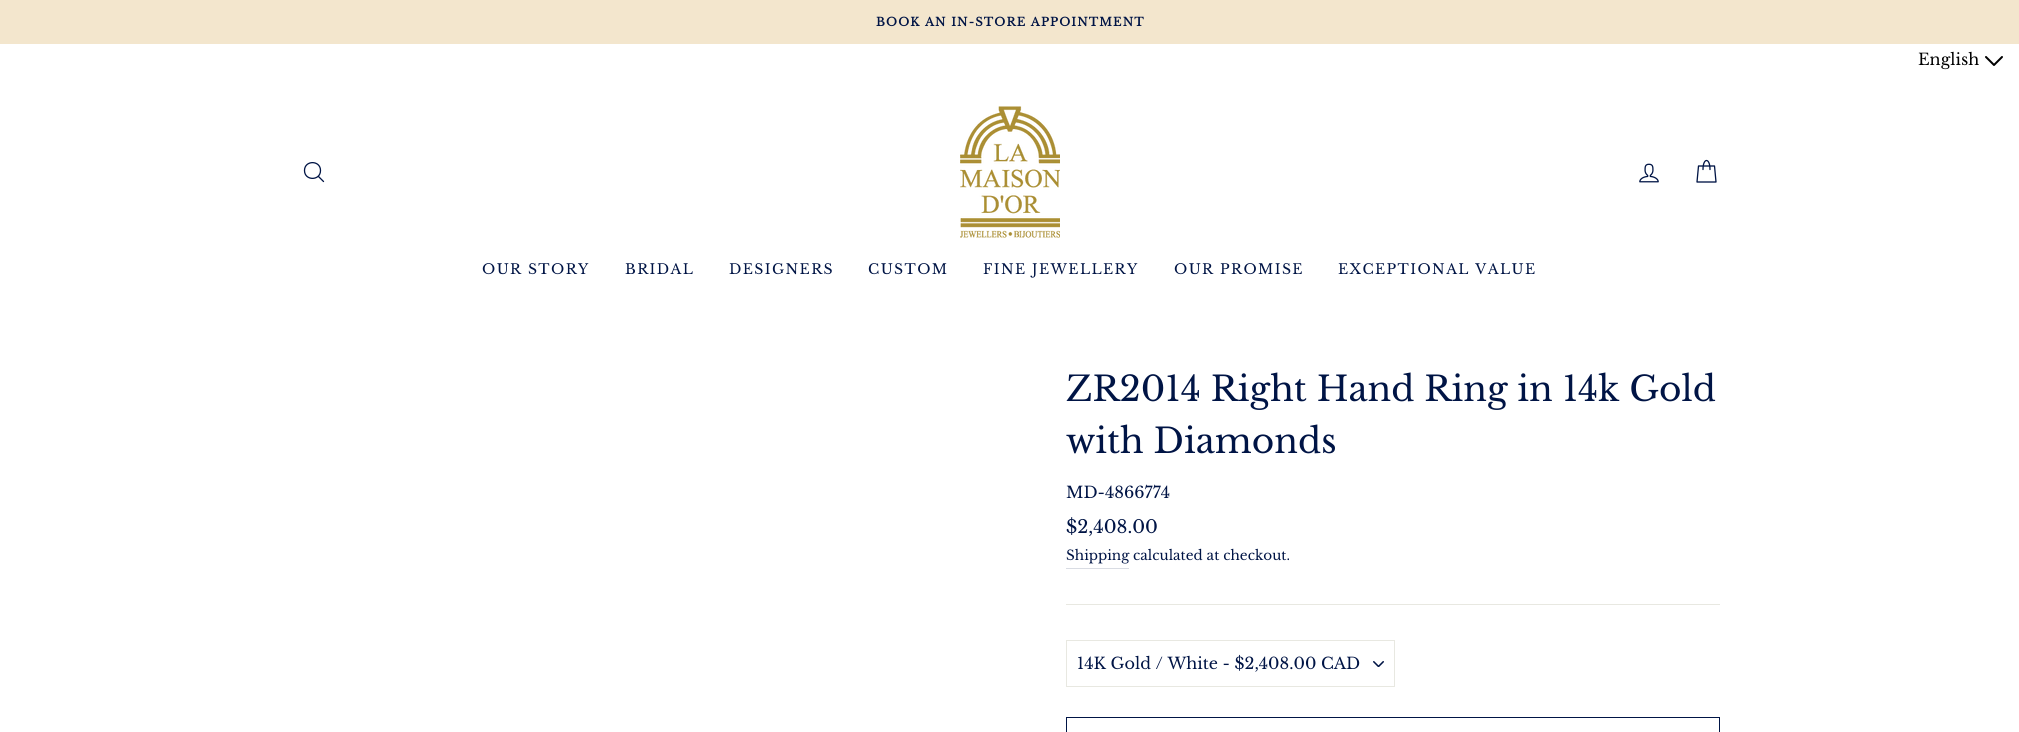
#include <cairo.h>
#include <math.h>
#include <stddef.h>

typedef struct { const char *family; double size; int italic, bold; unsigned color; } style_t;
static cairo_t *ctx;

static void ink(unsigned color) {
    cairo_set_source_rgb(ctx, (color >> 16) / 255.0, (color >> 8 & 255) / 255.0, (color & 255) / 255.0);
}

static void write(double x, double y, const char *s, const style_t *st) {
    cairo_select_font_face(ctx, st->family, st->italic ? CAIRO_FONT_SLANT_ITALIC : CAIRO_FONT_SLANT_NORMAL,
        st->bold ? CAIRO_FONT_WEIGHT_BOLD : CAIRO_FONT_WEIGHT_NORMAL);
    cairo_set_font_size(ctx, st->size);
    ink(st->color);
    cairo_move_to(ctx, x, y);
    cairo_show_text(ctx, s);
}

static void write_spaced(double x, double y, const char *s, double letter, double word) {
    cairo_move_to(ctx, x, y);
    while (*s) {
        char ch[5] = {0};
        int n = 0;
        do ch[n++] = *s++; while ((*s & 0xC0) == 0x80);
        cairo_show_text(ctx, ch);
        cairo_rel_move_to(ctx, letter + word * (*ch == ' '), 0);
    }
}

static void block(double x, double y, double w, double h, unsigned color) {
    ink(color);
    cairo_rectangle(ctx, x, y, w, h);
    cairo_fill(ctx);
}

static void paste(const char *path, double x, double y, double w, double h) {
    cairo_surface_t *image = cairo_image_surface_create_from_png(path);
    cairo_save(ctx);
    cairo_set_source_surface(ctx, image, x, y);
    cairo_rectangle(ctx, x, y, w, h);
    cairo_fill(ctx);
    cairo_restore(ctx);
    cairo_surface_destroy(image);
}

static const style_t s1 = {"Libre Baskerville", 16, 0, 0, 0x000000};
static const style_t s2 = {"Libre Baskerville", 34.4, 0, 0, 0x001445};
static const style_t s3 = {"Libre Baskerville", 16, 0, 0, 0x001445};
static const style_t s4 = {"Libre Baskerville", 18, 0, 0, 0x001445};
static const style_t s5 = {"Libre Baskerville", 13.6, 0, 0, 0x001445};

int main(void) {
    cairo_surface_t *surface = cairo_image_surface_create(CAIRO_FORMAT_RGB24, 2019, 732);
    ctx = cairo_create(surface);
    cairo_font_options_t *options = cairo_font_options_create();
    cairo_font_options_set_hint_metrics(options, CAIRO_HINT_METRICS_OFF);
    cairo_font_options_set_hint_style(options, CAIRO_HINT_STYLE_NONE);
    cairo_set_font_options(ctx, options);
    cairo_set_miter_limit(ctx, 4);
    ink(0xffffff);
    cairo_paint(ctx);
    block(0, 0, 2019, 44, 0xf3e6cd);
    cairo_select_font_face(ctx, "Libre Baskerville", CAIRO_FONT_SLANT_NORMAL, CAIRO_FONT_WEIGHT_BOLD);
    cairo_set_font_size(ctx, 11.6);
    ink(0x001445);
    write_spaced(876, 26, "BOOK AN IN-STORE APPOINTMENT", 1.15, 0);
    write(1918, 65, "English", &s1);
    paste("pic1.png", 1985, 56, 18, 10);
    cairo_new_path(ctx);
    cairo_move_to(ctx, 320.5, 170.5);
    cairo_curve_to(ctx, 320.5, 181, 304.5, 181, 304.5, 170.5);
    cairo_curve_to(ctx, 304.5, 160, 320.5, 160, 320.5, 170.5);
    cairo_close_path(ctx);
    cairo_move_to(ctx, 323.5, 181.5);
    cairo_line_to(ctx, 318.5, 176.5);
    ink(0x001445);
    cairo_set_line_width(ctx, 1.3);
    cairo_set_line_cap(ctx, CAIRO_LINE_CAP_ROUND);
    cairo_set_line_join(ctx, CAIRO_LINE_JOIN_ROUND);
    cairo_stroke(ctx);
    paste("pic2.png", 960, 106, 100, 132);
    paste("pic3.png", 1639, 163, 20, 20);
    cairo_new_path(ctx);
    cairo_move_to(ctx, 1703, 169.5);
    cairo_curve_to(ctx, 1703, 157.5, 1710, 157.5, 1710, 169.5);
    cairo_move_to(ctx, 1698.5, 166);
    cairo_line_to(ctx, 1714.5, 166);
    cairo_line_to(ctx, 1716, 182);
    cairo_line_to(ctx, 1697, 182);
    cairo_close_path(ctx);
    cairo_stroke(ctx);
    cairo_set_font_size(ctx, 14);
    write_spaced(482, 274, "OUR STORY", 1.4, 0);
    write_spaced(625, 274, "BRIDAL", 1.4, 0);
    write_spaced(729, 274, "DESIGNERS", 1.4, 0);
    write_spaced(868, 274, "CUSTOM", 1.4, 0);
    write_spaced(983, 274, "FINE JEWELLERY", 1.4, 0);
    write_spaced(1174, 274, "OUR PROMISE", 1.4, 0);
    write_spaced(1338, 274, "EXCEPTIONAL VALUE", 1.4, 0);
    write(1066, 401, "ZR2014 Right Hand Ring in 14k Gold", &s2);
    write(1066, 453, "with Diamonds", &s2);
    write(1066, 498, "MD-4866774", &s3);
    write(1066, 533, "$2,408.00", &s4);
    block(1066, 568, 63, 1, 0xd9dce3);
    write(1066, 560, "Shipping", &s5);
    write(1133, 560, "calculated at checkout.", &s5);
    block(1066, 604, 654, 1, 0xe8e8e1);
    paste("pic4.png", 1373, 661, 11, 6);
    cairo_rectangle(ctx, 1066.5, 640.5, 328, 46);
    cairo_set_line_width(ctx, 1);
    cairo_set_line_cap(ctx, CAIRO_LINE_CAP_BUTT);
    cairo_set_line_join(ctx, CAIRO_LINE_JOIN_MITER);
    cairo_stroke(ctx);
    write(1077, 669, "14K Gold / White - $2,408.00 CAD", &s3);
    cairo_rectangle(ctx, 1066.5, 717.5, 653, 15);
    cairo_stroke(ctx);
    cairo_surface_write_to_png(surface, "screenshot.png");
    cairo_font_options_destroy(options);
    cairo_destroy(ctx);
    cairo_surface_destroy(surface);
    return 0;
}
